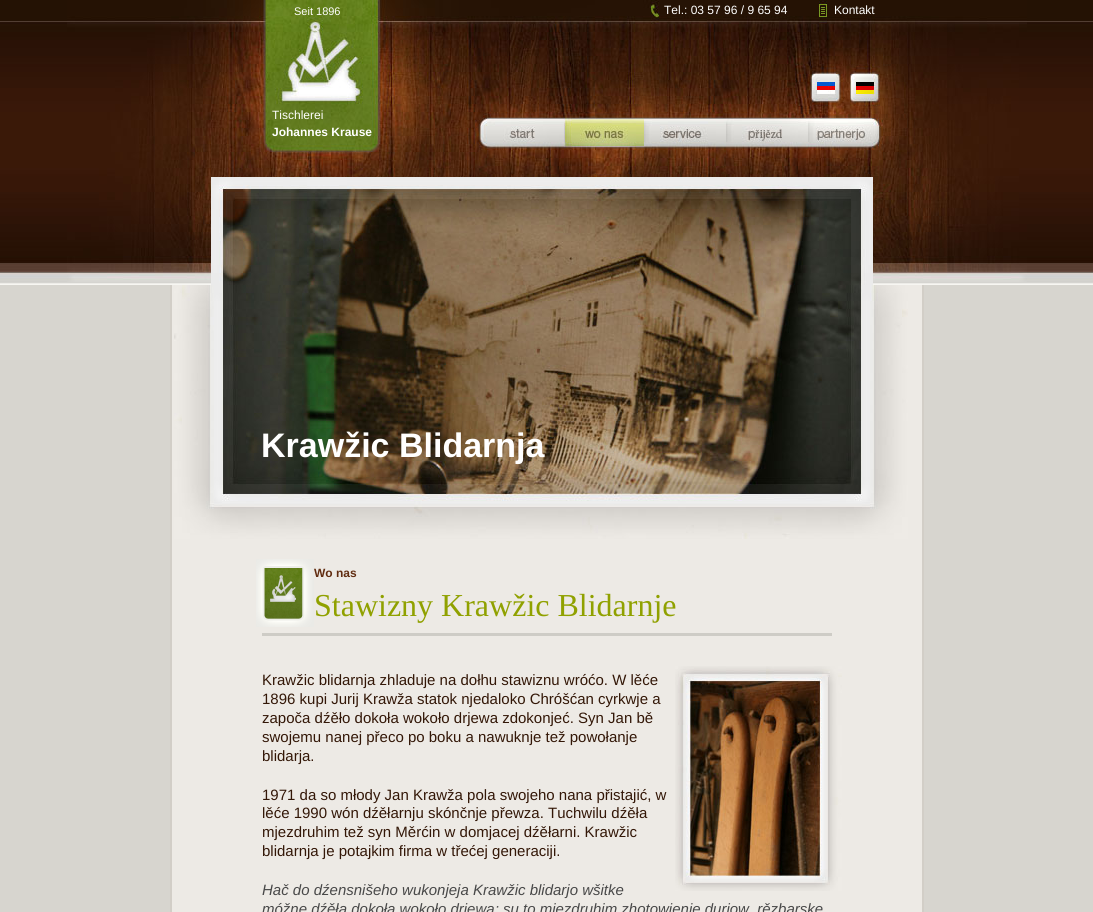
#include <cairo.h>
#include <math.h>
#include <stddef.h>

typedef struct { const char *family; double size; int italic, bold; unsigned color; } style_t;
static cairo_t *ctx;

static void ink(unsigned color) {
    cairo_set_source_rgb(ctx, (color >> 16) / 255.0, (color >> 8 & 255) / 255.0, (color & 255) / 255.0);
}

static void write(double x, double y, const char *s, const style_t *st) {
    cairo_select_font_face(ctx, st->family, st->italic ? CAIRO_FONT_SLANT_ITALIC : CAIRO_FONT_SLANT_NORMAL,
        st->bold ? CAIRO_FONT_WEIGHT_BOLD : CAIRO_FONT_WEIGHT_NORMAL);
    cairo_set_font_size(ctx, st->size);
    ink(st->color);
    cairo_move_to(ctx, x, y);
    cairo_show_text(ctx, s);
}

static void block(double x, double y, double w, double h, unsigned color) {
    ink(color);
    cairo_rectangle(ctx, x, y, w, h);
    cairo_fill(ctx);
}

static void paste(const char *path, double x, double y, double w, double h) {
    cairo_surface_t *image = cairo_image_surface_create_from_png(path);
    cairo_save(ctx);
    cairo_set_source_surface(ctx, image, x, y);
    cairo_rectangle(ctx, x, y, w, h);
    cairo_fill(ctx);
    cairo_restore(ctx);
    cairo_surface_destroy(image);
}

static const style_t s1 = {"Liberation Sans", 11, 0, 0, 0xffffff};
static const style_t s2 = {"Liberation Sans", 12, 0, 0, 0xffffff};
static const style_t s3 = {"Liberation Sans", 12, 0, 1, 0xffffff};
static const style_t s4 = {"Liberation Sans", 34, 0, 1, 0xffffff};
static const style_t s5 = {"Liberation Sans", 12, 0, 1, 0x612d11};
static const style_t s6 = {"Liberation Serif", 32, 0, 0, 0x90a100};
static const style_t s7 = {"Liberation Sans", 15, 0, 0, 0x331707};
static const style_t s8 = {"Liberation Sans", 15, 1, 0, 0x484848};

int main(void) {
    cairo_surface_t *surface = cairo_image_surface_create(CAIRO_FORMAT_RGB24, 1093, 912);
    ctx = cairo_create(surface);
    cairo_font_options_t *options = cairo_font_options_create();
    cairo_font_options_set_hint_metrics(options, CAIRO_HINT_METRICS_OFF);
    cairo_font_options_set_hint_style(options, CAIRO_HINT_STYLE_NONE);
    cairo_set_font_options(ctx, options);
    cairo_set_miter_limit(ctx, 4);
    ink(0x241204);
    cairo_paint(ctx);
    paste("pic1.png", 0, 21, 1093, 264);
    paste("pic2.png", 67, 0, 960, 282);
    write(294, 15, "Seit 1896", &s1);
    write(664, 14, "Tel.: 03 57 96 / 9 65 94", &s2);
    write(834, 14, "Kontakt", &s2);
    write(272, 119, "Tischlerei", &s2);
    paste("pic3.png", 796, 66, 54, 52);
    paste("pic4.png", 850, 66, 58, 52);
    write(272, 136, "Johannes Krause", &s3);
    paste("pic5.png", 479, 118, 85, 59);
    paste("pic6.png", 564, 118, 80, 59);
    paste("pic7.png", 644, 118, 82, 59);
    paste("pic8.png", 726, 118, 82, 59);
    paste("pic9.png", 873, 179, 6, 1);
    paste("pic10.png", 808, 118, 71, 61);
    paste("pic11.png", 211, 177, 662, 108);
    block(0, 285, 1093, 627, 0xd7d5cf);
    block(172, 285, 750, 627, 0xedeae5);
    paste("pic12.png", 174, 285, 734, 254);
    write(261, 457, "Krawžic Blidarnja", &s4);
    block(922, 285, 2, 627, 0xd2cec7);
    block(170, 285, 2, 627, 0xd2cec7);
    write(314, 577, "Wo nas", &s5);
    paste("pic13.png", 256, 559, 58, 68);
    write(314, 616, "Stawizny Krawžic Blidarnje", &s6);
    block(262, 633, 570, 3, 0xceccc6);
    write(262, 685, "Krawžic blidarnja zhladuje na dołhu stawiznu wróćo. W lěće", &s7);
    write(262, 704, "1896 kupi Jurij Krawža statok njedaloko Chróšćan cyrkwje a", &s7);
    write(262, 723, "započa dźěło dokoła wokoło drjewa zdokonjeć. Syn Jan bě", &s7);
    write(262, 742, "swojemu nanej přeco po boku a nawuknje tež powołanje", &s7);
    write(262, 761, "blidarja.", &s7);
    paste("pic14.png", 675, 666, 167, 225);
    write(262, 800, "1971 da so młody Jan Krawža pola swojeho nana přistajić, w", &s7);
    write(262, 818, "lěće 1990 wón dźěłarnju skónčnje přewza. Tuchwilu dźěła", &s7);
    write(262, 837, "mjezdruhim tež syn Měrćin w domjacej dźěłarni. Krawžic", &s7);
    write(262, 856, "blidarnja je potajkim firma w třećej generaciji.", &s7);
    write(262, 895, "Hač do dźensnišeho wukonjeja Krawžic blidarjo wšitke", &s8);
    write(262, 914, "móžne dźěła dokoła wokoło drjewa; su to mjezdruhim zhotowjenje durjow, rězbarske", &s8);
    cairo_surface_write_to_png(surface, "screenshot.png");
    cairo_font_options_destroy(options);
    cairo_destroy(ctx);
    cairo_surface_destroy(surface);
    return 0;
}
